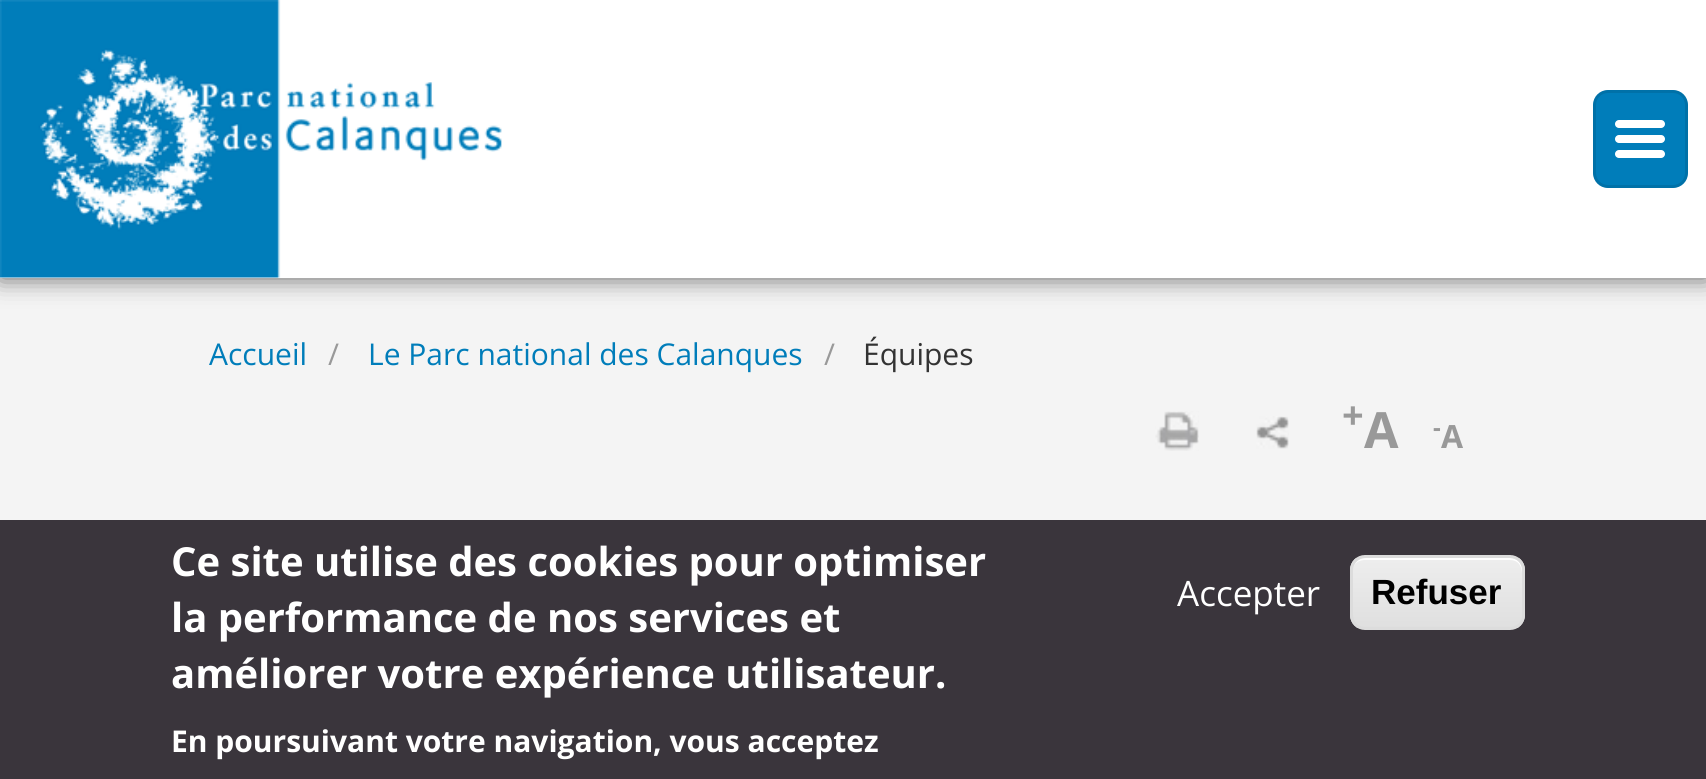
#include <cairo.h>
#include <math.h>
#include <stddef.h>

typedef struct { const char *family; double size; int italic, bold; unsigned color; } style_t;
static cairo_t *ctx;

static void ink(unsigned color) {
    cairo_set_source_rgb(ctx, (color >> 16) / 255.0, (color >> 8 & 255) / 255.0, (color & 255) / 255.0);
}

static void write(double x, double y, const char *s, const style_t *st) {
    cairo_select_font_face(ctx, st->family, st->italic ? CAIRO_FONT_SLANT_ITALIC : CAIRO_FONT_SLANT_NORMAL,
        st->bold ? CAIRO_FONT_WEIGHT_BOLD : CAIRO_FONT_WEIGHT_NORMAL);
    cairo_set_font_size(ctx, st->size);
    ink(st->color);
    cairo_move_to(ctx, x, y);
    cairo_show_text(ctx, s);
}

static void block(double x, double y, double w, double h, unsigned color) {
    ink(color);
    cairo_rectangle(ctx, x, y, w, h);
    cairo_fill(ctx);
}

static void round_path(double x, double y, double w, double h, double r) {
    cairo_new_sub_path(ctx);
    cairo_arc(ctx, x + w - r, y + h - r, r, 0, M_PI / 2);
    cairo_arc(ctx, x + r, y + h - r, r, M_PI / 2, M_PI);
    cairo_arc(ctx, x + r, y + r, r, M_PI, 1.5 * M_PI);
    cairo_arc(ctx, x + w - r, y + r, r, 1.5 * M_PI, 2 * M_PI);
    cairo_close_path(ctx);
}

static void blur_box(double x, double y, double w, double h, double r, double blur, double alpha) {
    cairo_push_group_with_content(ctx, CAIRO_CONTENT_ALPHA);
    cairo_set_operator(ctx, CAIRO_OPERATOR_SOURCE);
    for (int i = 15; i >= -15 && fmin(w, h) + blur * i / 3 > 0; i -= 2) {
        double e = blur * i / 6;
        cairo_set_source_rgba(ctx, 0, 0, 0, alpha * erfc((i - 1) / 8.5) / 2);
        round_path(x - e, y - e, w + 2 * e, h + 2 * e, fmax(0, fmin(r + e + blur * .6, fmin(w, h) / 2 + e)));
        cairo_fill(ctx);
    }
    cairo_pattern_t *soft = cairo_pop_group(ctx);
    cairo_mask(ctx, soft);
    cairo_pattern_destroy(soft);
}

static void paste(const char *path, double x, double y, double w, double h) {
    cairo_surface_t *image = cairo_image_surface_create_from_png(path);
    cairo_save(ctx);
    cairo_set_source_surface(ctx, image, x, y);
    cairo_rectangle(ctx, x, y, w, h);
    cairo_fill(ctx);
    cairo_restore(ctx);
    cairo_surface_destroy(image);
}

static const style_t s1 = {"Open Sans", 30, 0, 0, 0x007dba};
static const style_t s2 = {"Open Sans", 30, 0, 0, 0x999999};
static const style_t s3 = {"Open Sans", 30, 0, 0, 0x333333};
static const style_t s4 = {"Open Sans", 38, 0, 1, 0x999999};
static const style_t s5 = {"Open Sans", 50, 0, 1, 0x999999};
static const style_t s6 = {"Open Sans", 24, 0, 1, 0x999999};
static const style_t s7 = {"Open Sans", 32, 0, 1, 0x999999};
static const style_t s8 = {"Open Sans", 40, 0, 1, 0xffffff};
static const style_t s9 = {"Open Sans", 30, 0, 1, 0xffffff};
static const style_t s10 = {"Open Sans", 35, 0, 0, 0xffffff};
static const style_t s11 = {"Liberation Sans", 35, 0, 1, 0x000000};

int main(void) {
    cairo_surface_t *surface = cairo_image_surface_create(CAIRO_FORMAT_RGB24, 1706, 779);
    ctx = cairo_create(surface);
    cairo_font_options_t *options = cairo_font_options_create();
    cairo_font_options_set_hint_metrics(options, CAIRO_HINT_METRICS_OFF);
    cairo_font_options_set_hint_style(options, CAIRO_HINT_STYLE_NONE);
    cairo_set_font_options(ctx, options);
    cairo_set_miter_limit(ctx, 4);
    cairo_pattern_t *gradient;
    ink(0xf4f4f4);
    cairo_paint(ctx);
    ink(0x000000);
    blur_box(0, 0, 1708, 278, 0, 12.5, 0.6);
    block(0, 0, 1706, 278, 0xffffff);
    paste("pic1.png", 0, 0, 502, 278);
    ink(0x007dba);
    round_path(1593, 90, 95, 98, 15);
    cairo_fill(ctx);
    round_path(1594.5, 91.5, 92, 95, 13.5);
    cairo_set_source_rgba(ctx, 0, 0, 0, 0.1);
    cairo_set_line_width(ctx, 3);
    cairo_stroke(ctx);
    ink(0xffffff);
    round_path(1615, 120, 50, 8, 4);
    cairo_fill(ctx);
    round_path(1615, 135, 50, 8, 4);
    cairo_fill(ctx);
    round_path(1615, 150, 50, 8, 4);
    cairo_fill(ctx);
    write(209, 365, "Accueil", &s1);
    write(328, 365, "/", &s2);
    write(368, 365, "Le Parc national des Calanques", &s1);
    write(824, 365, "/", &s2);
    write(863, 365, "Équipes", &s3);
    paste("pic2.png", 1155, 411, 44, 40);
    paste("pic3.png", 1256, 416, 33, 33);
    write(1342, 429, "+", &s4);
    write(1364, 448, "A", &s5);
    write(1433, 436, "-", &s6);
    write(1441, 448, "A", &s7);
    block(0, 520, 1706, 259, 0x3a353c);
    write(171, 576, "Ce site utilise des cookies pour optimiser", &s8);
    write(171, 632, "la performance de nos services et", &s8);
    write(171, 688, "améliorer votre expérience utilisateur.", &s8);
    write(171, 752, "En poursuivant votre navigation, vous acceptez", &s9);
    write(1177, 606, "Accepter", &s10);
    cairo_save(ctx);
    round_path(1350, 555, 175, 75, 15);
    cairo_clip(ctx);
    gradient = cairo_pattern_create_linear(1438, 558, 1438, 628);
    cairo_pattern_add_color_stop_rgba(gradient, 0.05, 0.929, 0.929, 0.929, 1);
    cairo_pattern_add_color_stop_rgba(gradient, 1, 0.875, 0.875, 0.875, 1);
    cairo_set_source(ctx, gradient);
    cairo_pattern_destroy(gradient);
    cairo_rectangle(ctx, 1350, 558, 175, 70);
    cairo_fill(ctx);
    cairo_restore(ctx);
    cairo_new_path(ctx);
    cairo_move_to(ctx, 1365, 560);
    cairo_line_to(ctx, 1510, 560);
    cairo_curve_to(ctx, 1525, 560, 1522, 578, 1522, 587);
    cairo_line_to(ctx, 1522, 621);
    cairo_curve_to(ctx, 1523, 619, 1523, 617, 1523, 615);
    cairo_line_to(ctx, 1523, 571);
    cairo_curve_to(ctx, 1523, 564, 1517, 558, 1510, 558);
    cairo_line_to(ctx, 1366, 558);
    cairo_curve_to(ctx, 1361, 558, 1356, 561, 1354, 566);
    cairo_curve_to(ctx, 1356, 562, 1360, 560, 1365, 560);
    cairo_close_path(ctx);
    cairo_fill(ctx);
    round_path(1351.5, 556.5, 172, 72, 13.5);
    ink(0xdcdcdc);
    cairo_stroke(ctx);
    write(1371, 604, "Refuser", &s11);
    cairo_surface_write_to_png(surface, "screenshot.png");
    cairo_font_options_destroy(options);
    cairo_destroy(ctx);
    cairo_surface_destroy(surface);
    return 0;
}
